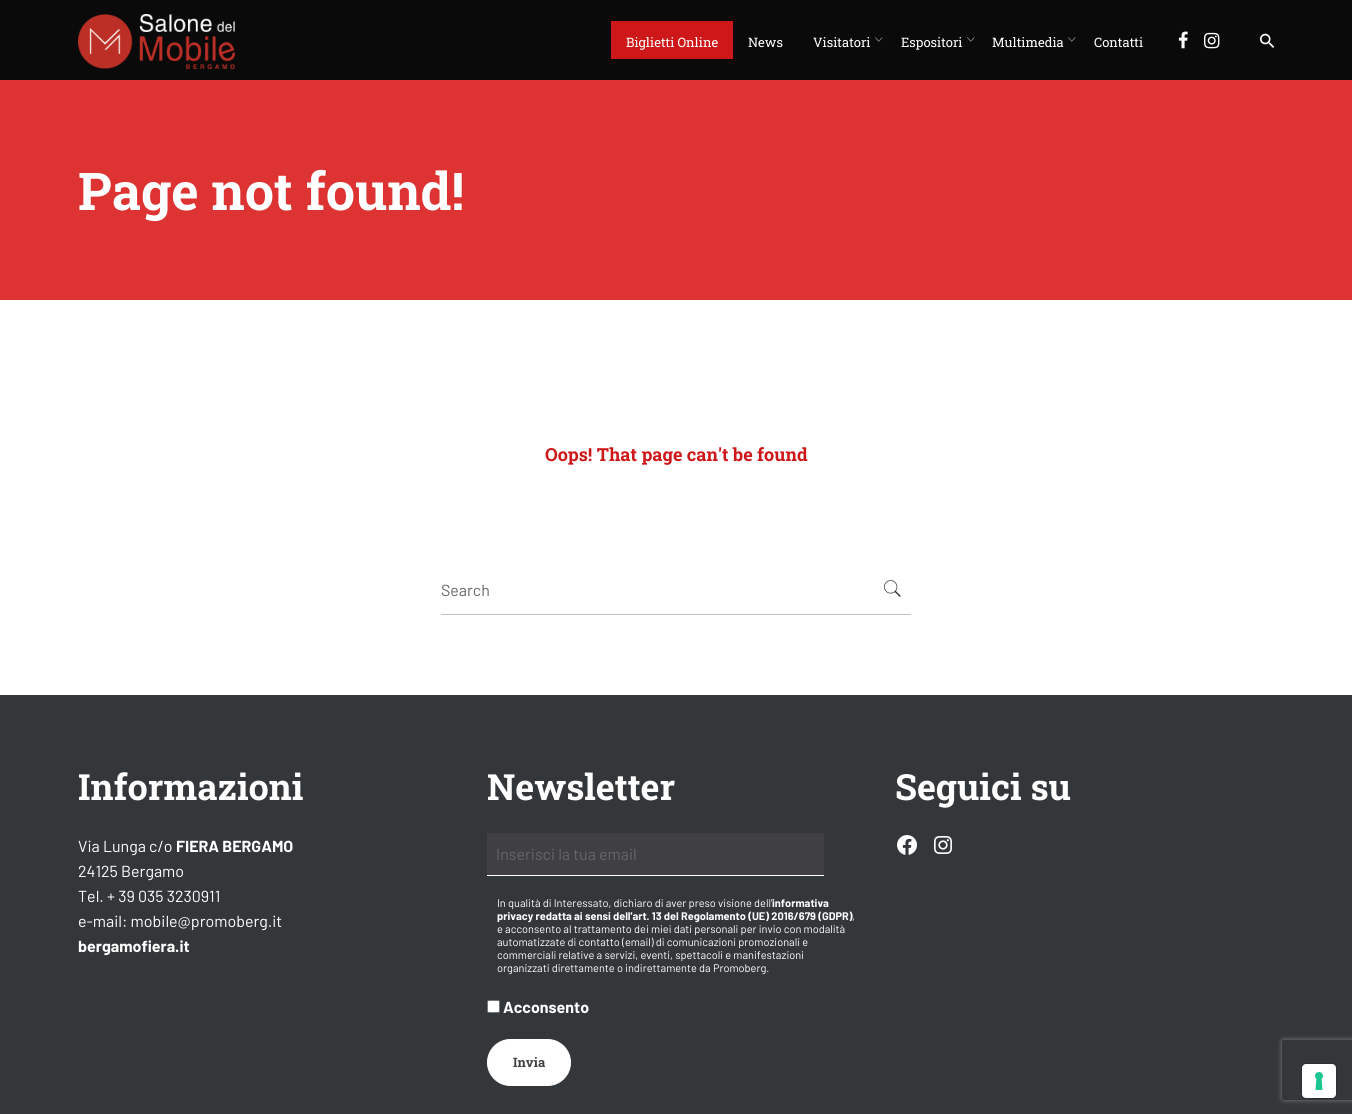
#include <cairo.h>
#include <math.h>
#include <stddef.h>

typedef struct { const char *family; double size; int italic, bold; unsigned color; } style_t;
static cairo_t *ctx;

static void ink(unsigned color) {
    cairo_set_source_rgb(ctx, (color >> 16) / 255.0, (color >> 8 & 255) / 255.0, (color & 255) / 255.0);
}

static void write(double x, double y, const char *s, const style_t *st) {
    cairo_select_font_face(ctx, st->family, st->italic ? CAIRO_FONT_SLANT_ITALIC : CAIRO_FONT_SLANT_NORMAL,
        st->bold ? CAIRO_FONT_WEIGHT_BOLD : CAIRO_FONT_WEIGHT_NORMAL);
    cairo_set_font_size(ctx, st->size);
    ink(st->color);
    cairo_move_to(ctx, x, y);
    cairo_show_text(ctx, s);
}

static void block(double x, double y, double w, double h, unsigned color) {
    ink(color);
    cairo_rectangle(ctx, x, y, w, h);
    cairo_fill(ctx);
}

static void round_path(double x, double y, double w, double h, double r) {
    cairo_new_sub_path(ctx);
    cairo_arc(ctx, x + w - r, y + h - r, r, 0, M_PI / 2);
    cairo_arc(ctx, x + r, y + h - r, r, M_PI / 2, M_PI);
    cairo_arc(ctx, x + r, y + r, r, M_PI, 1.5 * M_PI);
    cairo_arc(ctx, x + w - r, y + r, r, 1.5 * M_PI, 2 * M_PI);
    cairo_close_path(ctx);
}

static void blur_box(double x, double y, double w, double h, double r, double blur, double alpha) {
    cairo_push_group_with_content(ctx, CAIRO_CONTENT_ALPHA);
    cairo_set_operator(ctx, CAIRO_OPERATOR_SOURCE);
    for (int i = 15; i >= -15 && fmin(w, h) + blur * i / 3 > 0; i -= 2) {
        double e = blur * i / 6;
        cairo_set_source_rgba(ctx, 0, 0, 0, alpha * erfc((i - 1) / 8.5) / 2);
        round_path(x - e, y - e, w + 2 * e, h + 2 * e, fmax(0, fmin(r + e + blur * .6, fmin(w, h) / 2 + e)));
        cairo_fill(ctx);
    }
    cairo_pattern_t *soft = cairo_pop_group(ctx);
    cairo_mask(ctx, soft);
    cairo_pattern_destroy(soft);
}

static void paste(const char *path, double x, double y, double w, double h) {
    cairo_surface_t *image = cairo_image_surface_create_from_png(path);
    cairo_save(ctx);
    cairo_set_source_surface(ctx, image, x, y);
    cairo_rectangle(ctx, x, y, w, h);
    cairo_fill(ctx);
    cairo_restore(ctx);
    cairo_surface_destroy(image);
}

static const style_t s1 = {"Roboto Slab", 13, 0, 0, 0xffffff};
static const style_t s2 = {"Roboto Slab", 52, 0, 1, 0xffffff};
static const style_t s3 = {"Roboto Slab", 18, 0, 1, 0xcd1719};
static const style_t s4 = {"Barlow", 16, 0, 0, 0x666666};
static const style_t s5 = {"Roboto Slab", 36, 0, 1, 0xffffff};
static const style_t s6 = {"Barlow", 16, 0, 0, 0xffffff};
static const style_t s7 = {"Barlow", 16, 0, 1, 0xffffff};
static const style_t s8 = {"Barlow", 11, 0, 0, 0xffffff};
static const style_t s9 = {"Barlow", 11, 0, 1, 0xffffff};
static const style_t s10 = {"Roboto Slab", 13, 0, 1, 0x404044};

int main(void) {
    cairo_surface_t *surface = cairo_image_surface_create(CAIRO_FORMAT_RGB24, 1352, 1114);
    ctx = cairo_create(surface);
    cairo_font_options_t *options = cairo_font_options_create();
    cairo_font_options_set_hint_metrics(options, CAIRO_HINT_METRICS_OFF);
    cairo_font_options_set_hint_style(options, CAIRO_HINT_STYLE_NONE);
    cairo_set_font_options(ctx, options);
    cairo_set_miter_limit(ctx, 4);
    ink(0xffffff);
    cairo_paint(ctx);
    block(0, 0, 1352, 80, 0x0a0a0a);
    paste("pic1.png", 78, 14, 157, 55);
    block(611, 21, 122, 38, 0xcd1719);
    write(626, 47, "Biglietti Online", &s1);
    write(748, 47, "News", &s1);
    write(813, 47, "Visitatori", &s1);
    paste("pic2.png", 875, 37, 8, 5);
    write(901, 47, "Espositori", &s1);
    paste("pic2.png", 967, 37, 8, 5);
    write(992, 47, "Multimedia", &s1);
    paste("pic2.png", 1068, 37, 8, 5);
    write(1094, 47, "Contatti", &s1);
    paste("pic3.png", 1178, 31, 10, 18);
    paste("pic4.png", 1204, 32, 16, 17);
    paste("pic5.png", 1260, 33, 15, 15);
    block(0, 80, 1352, 220, 0xdd3333);
    write(78, 210, "Page not found!", &s2);
    write(545, 461, "Oops! That page can't be found", &s3);
    block(441, 614, 470, 1, 0xbfbfbf);
    write(441, 596, "Search", &s4);
    paste("pic6.png", 884, 580, 17, 17);
    block(0, 695, 1352, 419, 0x34373a);
    write(78, 800, "Informazioni", &s5);
    write(78, 852, "Via Lunga c/o", &s6);
    write(176, 852, "FIERA BERGAMO", &s7);
    write(78, 877, "24125 Bergamo", &s6);
    write(78, 902, "Tel. + 39 035 3230911", &s6);
    write(78, 927, "e-mail: mobile@promoberg.it", &s6);
    write(78, 952, "bergamofiera.it", &s7);
    write(487, 800, "Newsletter", &s5);
    block(487, 833, 337, 42, 0x404044);
    block(487, 875, 337, 1, 0xffffff);
    write(496, 860, "Inserisci la tua email", &s4);
    write(497, 907, "In qualità di Interessato, dichiaro di aver preso visione dell'", &s8);
    write(772, 907, "informativa", &s9);
    write(497, 920, "privacy redatta ai sensi dell'art. 13 del Regolamento (UE) 2016/679 (GDPR)", &s9);
    write(852, 920, ",", &s8);
    write(497, 933, "e acconsento al trattamento dei miei dati personali per invio con modalità", &s8);
    write(497, 946, "automatizzate di contatto (email) di comunicazioni promozionali e", &s8);
    write(497, 959, "commerciali relative a servizi, eventi, spettacoli e manifestazioni", &s8);
    write(497, 972, "organizzati direttamente o indirettamente da Promoberg.", &s8);
    round_path(487.5, 1000.5, 12, 12, 1.5);
    cairo_fill_preserve(ctx);
    ink(0x767676);
    cairo_set_line_width(ctx, 1);
    cairo_stroke(ctx);
    write(503, 1013, "Acconsento", &s7);
    round_path(487.5, 1039.5, 83, 46, 23);
    cairo_fill_preserve(ctx);
    cairo_stroke(ctx);
    write(513, 1067, "Invia", &s10);
    write(895, 800, "Seguici su", &s5);
    paste("pic7.png", 897, 835, 20, 20);
    paste("pic8.png", 934, 836, 18, 18);
    cairo_save(ctx);
    cairo_set_fill_rule(ctx, CAIRO_FILL_RULE_EVEN_ODD);
    cairo_new_path(ctx);
    cairo_move_to(ctx, 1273, 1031);
    cairo_line_to(ctx, 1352, 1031);
    cairo_line_to(ctx, 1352, 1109);
    cairo_line_to(ctx, 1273, 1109);
    cairo_close_path(ctx);
    cairo_move_to(ctx, 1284, 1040);
    cairo_line_to(ctx, 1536, 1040);
    cairo_curve_to(ctx, 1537, 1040, 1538, 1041, 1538, 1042);
    cairo_line_to(ctx, 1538, 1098);
    cairo_curve_to(ctx, 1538, 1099, 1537, 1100, 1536, 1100);
    cairo_line_to(ctx, 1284, 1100);
    cairo_curve_to(ctx, 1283, 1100, 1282, 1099, 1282, 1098);
    cairo_line_to(ctx, 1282, 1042);
    cairo_curve_to(ctx, 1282, 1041, 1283, 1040, 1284, 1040);
    cairo_close_path(ctx);
    cairo_clip(ctx);
    ink(0x808080);
    blur_box(1282, 1040, 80, 60, 2, 2.5, 1);
    cairo_restore(ctx);
    round_path(1301.5, 1063.5, 35, 35, 4.5);
    ink(0x2c2f31);
    cairo_stroke(ctx);
    ink(0xffffff);
    round_path(1302, 1064, 34, 34, 4);
    cairo_fill(ctx);
    paste("pic9.png", 1315, 1072, 8, 18);
    cairo_surface_write_to_png(surface, "screenshot.png");
    cairo_font_options_destroy(options);
    cairo_destroy(ctx);
    cairo_surface_destroy(surface);
    return 0;
}
